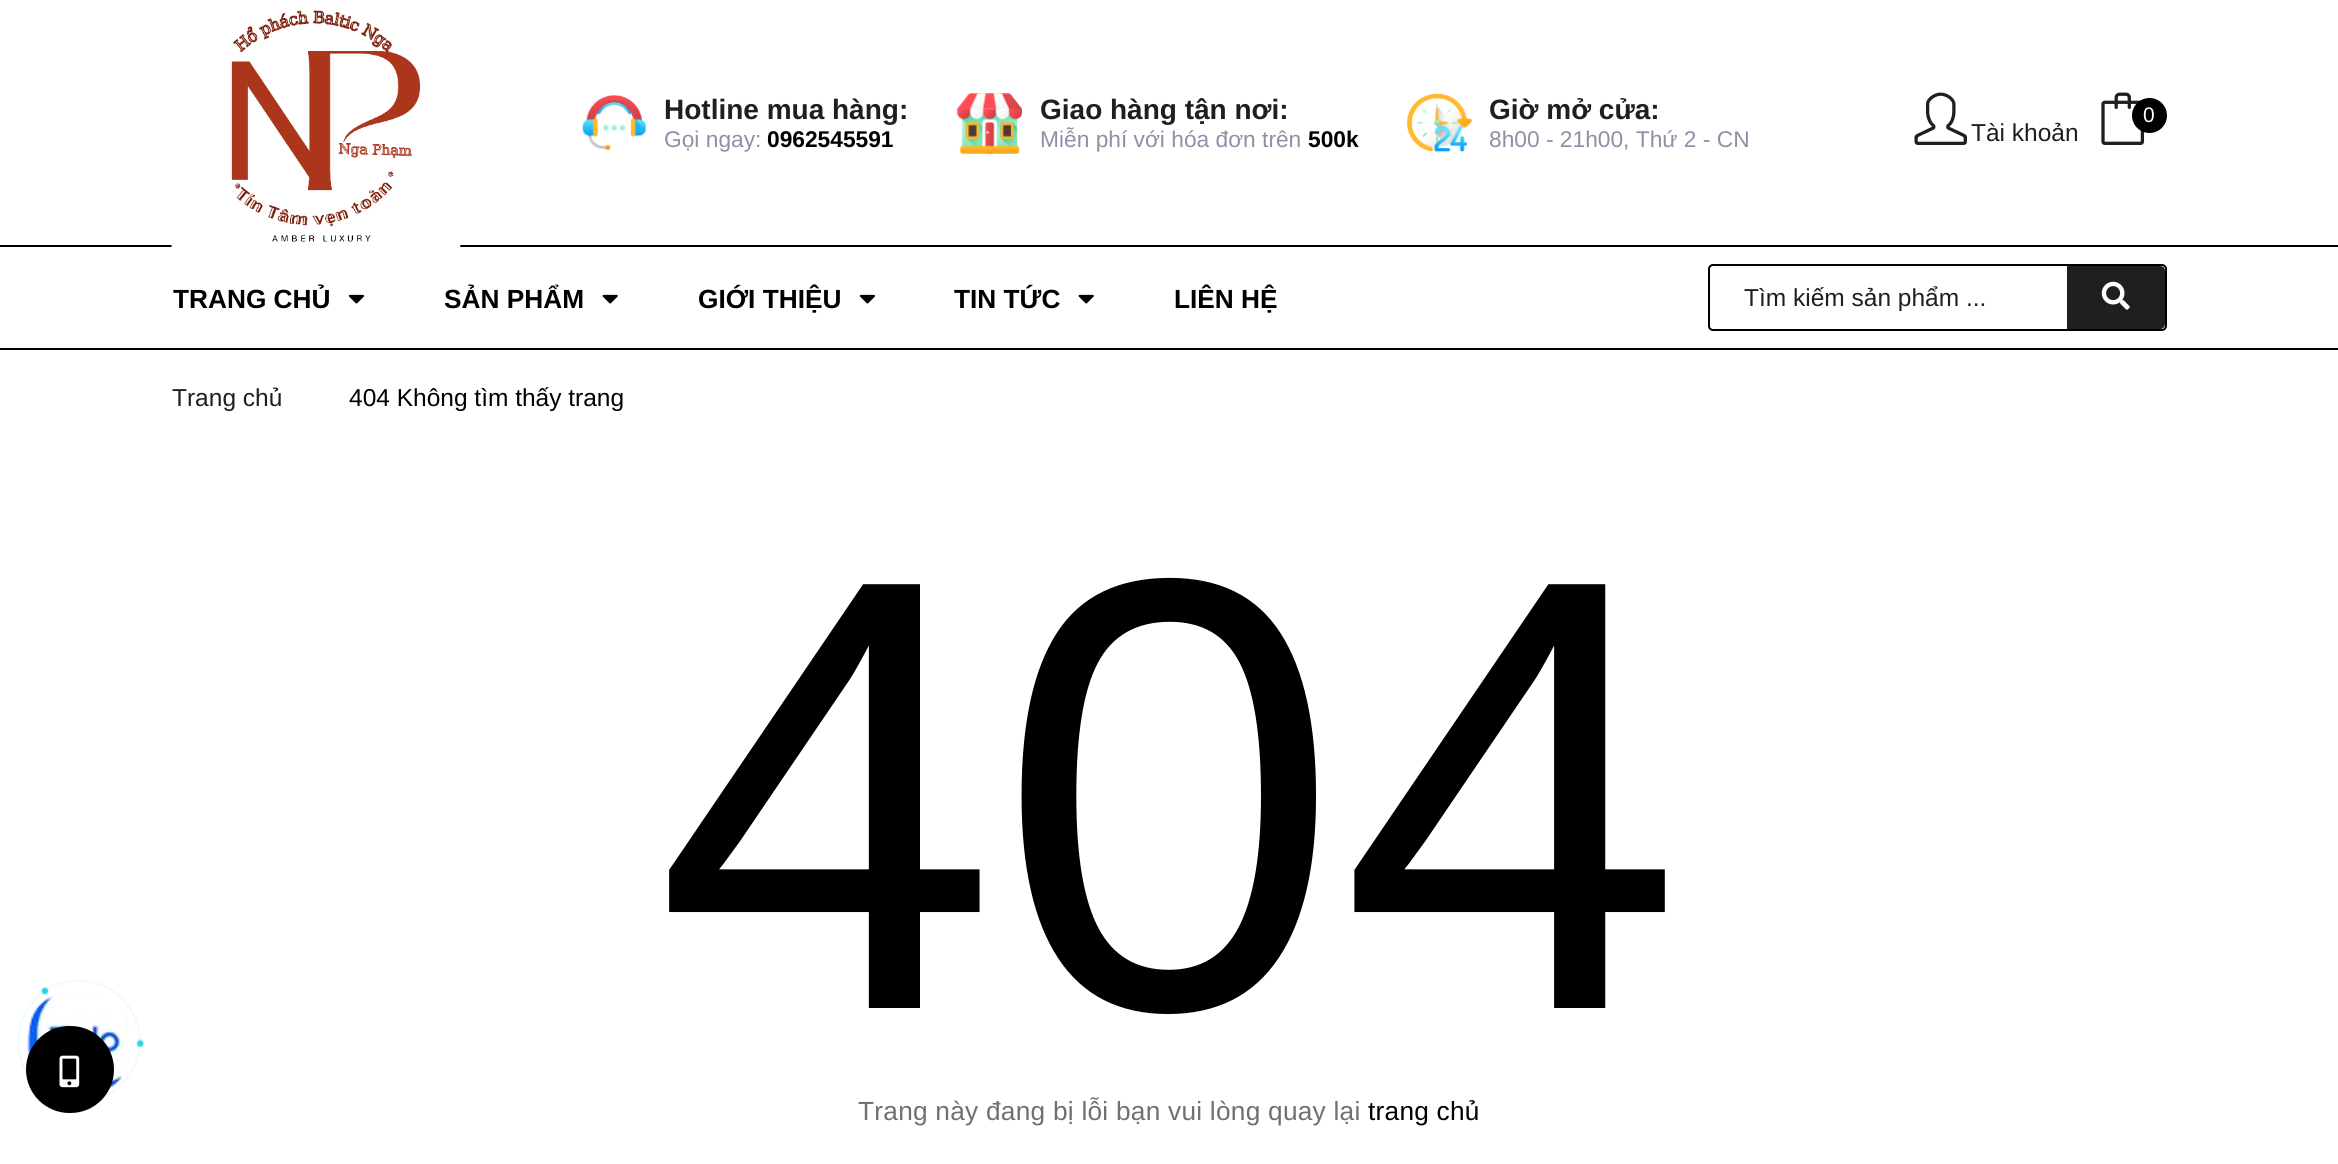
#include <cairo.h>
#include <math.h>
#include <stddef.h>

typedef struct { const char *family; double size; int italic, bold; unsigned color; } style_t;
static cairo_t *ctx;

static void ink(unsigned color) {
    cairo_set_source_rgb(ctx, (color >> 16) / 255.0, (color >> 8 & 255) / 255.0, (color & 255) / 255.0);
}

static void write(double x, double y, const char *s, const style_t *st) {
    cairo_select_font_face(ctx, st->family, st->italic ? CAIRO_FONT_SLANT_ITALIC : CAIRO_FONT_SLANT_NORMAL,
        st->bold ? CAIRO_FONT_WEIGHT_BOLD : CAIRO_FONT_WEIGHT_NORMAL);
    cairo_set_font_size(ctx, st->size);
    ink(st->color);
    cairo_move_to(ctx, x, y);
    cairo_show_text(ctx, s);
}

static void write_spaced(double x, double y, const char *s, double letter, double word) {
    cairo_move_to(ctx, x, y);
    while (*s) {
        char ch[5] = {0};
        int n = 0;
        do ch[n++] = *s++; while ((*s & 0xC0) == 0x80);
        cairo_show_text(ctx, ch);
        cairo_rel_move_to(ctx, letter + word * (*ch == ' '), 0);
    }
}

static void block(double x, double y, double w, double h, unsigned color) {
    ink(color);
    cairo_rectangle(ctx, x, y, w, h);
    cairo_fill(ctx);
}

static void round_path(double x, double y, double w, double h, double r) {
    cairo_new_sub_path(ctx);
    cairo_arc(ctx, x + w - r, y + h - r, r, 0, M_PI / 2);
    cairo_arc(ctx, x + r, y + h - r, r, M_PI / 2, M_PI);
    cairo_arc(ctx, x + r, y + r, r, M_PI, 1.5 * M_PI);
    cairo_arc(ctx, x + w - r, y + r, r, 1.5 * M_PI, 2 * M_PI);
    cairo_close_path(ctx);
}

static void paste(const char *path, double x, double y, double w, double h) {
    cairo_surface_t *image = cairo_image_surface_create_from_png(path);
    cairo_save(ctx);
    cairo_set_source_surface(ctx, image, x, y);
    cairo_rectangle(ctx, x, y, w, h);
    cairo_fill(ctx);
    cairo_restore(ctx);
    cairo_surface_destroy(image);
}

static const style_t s1 = {"Liberation Sans", 28, 0, 1, 0x201e1e};
static const style_t s2 = {"Liberation Sans", 22.75, 0, 0, 0x8d90a6};
static const style_t s3 = {"Liberation Sans", 22.75, 0, 1, 0x000000};
static const style_t s4 = {"Liberation Sans", 21, 0, 0, 0xffffff};
static const style_t s5 = {"Liberation Sans", 24.5, 0, 0, 0x201e1e};
static const style_t s6 = {"Liberation Sans", 26.25, 0, 1, 0x000000};
static const style_t s7 = {"Liberation Sans", 24.5, 0, 0, 0x000000};
static const style_t s8 = {"Liberation Sans", 616, 0, 0, 0x000000};

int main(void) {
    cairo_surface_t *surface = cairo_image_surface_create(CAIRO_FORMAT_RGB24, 2338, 1164);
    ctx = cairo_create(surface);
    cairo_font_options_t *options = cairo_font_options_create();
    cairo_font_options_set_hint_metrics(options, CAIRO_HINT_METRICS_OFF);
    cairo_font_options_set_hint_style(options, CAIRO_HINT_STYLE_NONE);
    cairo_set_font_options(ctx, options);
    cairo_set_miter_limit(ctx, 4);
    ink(0xffffff);
    cairo_paint(ctx);
    block(0, 245, 2338, 2, 0x000000);
    paste("pic1.png", 171, 10, 290, 237);
    paste("pic2.png", 582, 95, 64, 56);
    write(664, 119, "Hotline mua hàng:", &s1);
    write(664, 147, "Gọi ngay:", &s2);
    write(767, 147, "0962545591", &s3);
    paste("pic3.png", 957, 93, 65, 61);
    write(1040, 119, "Giao hàng tận nơi:", &s1);
    write(1040, 147, "Miễn phí với hóa đơn trên", &s2);
    write(1308, 147, "500k", &s3);
    paste("pic4.png", 1407, 93, 65, 59);
    write(1489, 119, "Giờ mở cửa:", &s1);
    write(1489, 147, "8h00 - 21h00, Thứ 2 - CN", &s2);
    paste("pic5.png", 2101, 92, 44, 53);
    ink(0x000000);
    cairo_arc(ctx, 2149.5, 115.5, 17.5, 0, 2 * M_PI);
    cairo_fill(ctx);
    write(2143, 122, "0", &s4);
    paste("pic6.png", 1914, 92, 53, 53);
    write(1971, 141, "Tài khoản", &s5);
    block(0, 348, 2338, 2, 0x000000);
    write(173, 308, "TRANG CHỦ", &s6);
    paste("pic7.png", 348, 294, 16, 10);
    write(444, 308, "SẢN PHẨM", &s6);
    paste("pic8.png", 602, 294, 16, 10);
    write(698, 308, "GIỚI THIỆU", &s6);
    paste("pic7.png", 859, 294, 16, 10);
    write(954, 308, "TIN TỨC", &s6);
    paste("pic8.png", 1078, 294, 16, 10);
    write(1174, 308, "LIÊN HỆ", &s6);
    round_path(1709, 265, 457, 65, 4);
    cairo_stroke(ctx);
    ink(0xffffff);
    cairo_new_path(ctx);
    cairo_move_to(ctx, 1715, 266);
    cairo_line_to(ctx, 2069, 266);
    cairo_line_to(ctx, 2069, 329);
    cairo_line_to(ctx, 1715, 329);
    cairo_curve_to(ctx, 1712, 329, 1710, 327, 1710, 324);
    cairo_line_to(ctx, 1710, 271);
    cairo_curve_to(ctx, 1710, 268, 1712, 266, 1715, 266);
    cairo_close_path(ctx);
    cairo_fill(ctx);
    write(1744, 306, "Tìm kiếm sản phẩm ...", &s5);
    cairo_new_path(ctx);
    cairo_move_to(ctx, 2067, 266);
    cairo_line_to(ctx, 2160, 266);
    cairo_curve_to(ctx, 2163, 266, 2165, 268, 2165, 271);
    cairo_line_to(ctx, 2165, 324);
    cairo_curve_to(ctx, 2165, 327, 2163, 329, 2160, 329);
    cairo_line_to(ctx, 2067, 329);
    cairo_close_path(ctx);
    cairo_fill(ctx);
    paste("pic9.png", 2101, 281, 29, 29);
    write(172, 406, "Trang chủ", &s5);
    write(349, 406, "404 Không tìm thấy trang", &s7);
    paste("pic10.png", 17, 979, 127, 120);
    paste("pic11.png", 27, 994, 102, 97);
    write(655, 1008, "404", &s8);
    cairo_set_font_size(ctx, 26.25);
    ink(0x707070);
    write_spaced(858, 1120, "Trang này đang bị lỗi bạn vui lòng quay lại", 0.25, 0);
    ink(0x000000);
    write_spaced(1368, 1120, "trang chủ", 0.25, 0);
    round_path(26, 1026, 88, 87, 43.5);
    cairo_fill(ctx);
    paste("pic12.png", 59, 1055, 21, 33);
    cairo_surface_write_to_png(surface, "screenshot.png");
    cairo_font_options_destroy(options);
    cairo_destroy(ctx);
    cairo_surface_destroy(surface);
    return 0;
}
